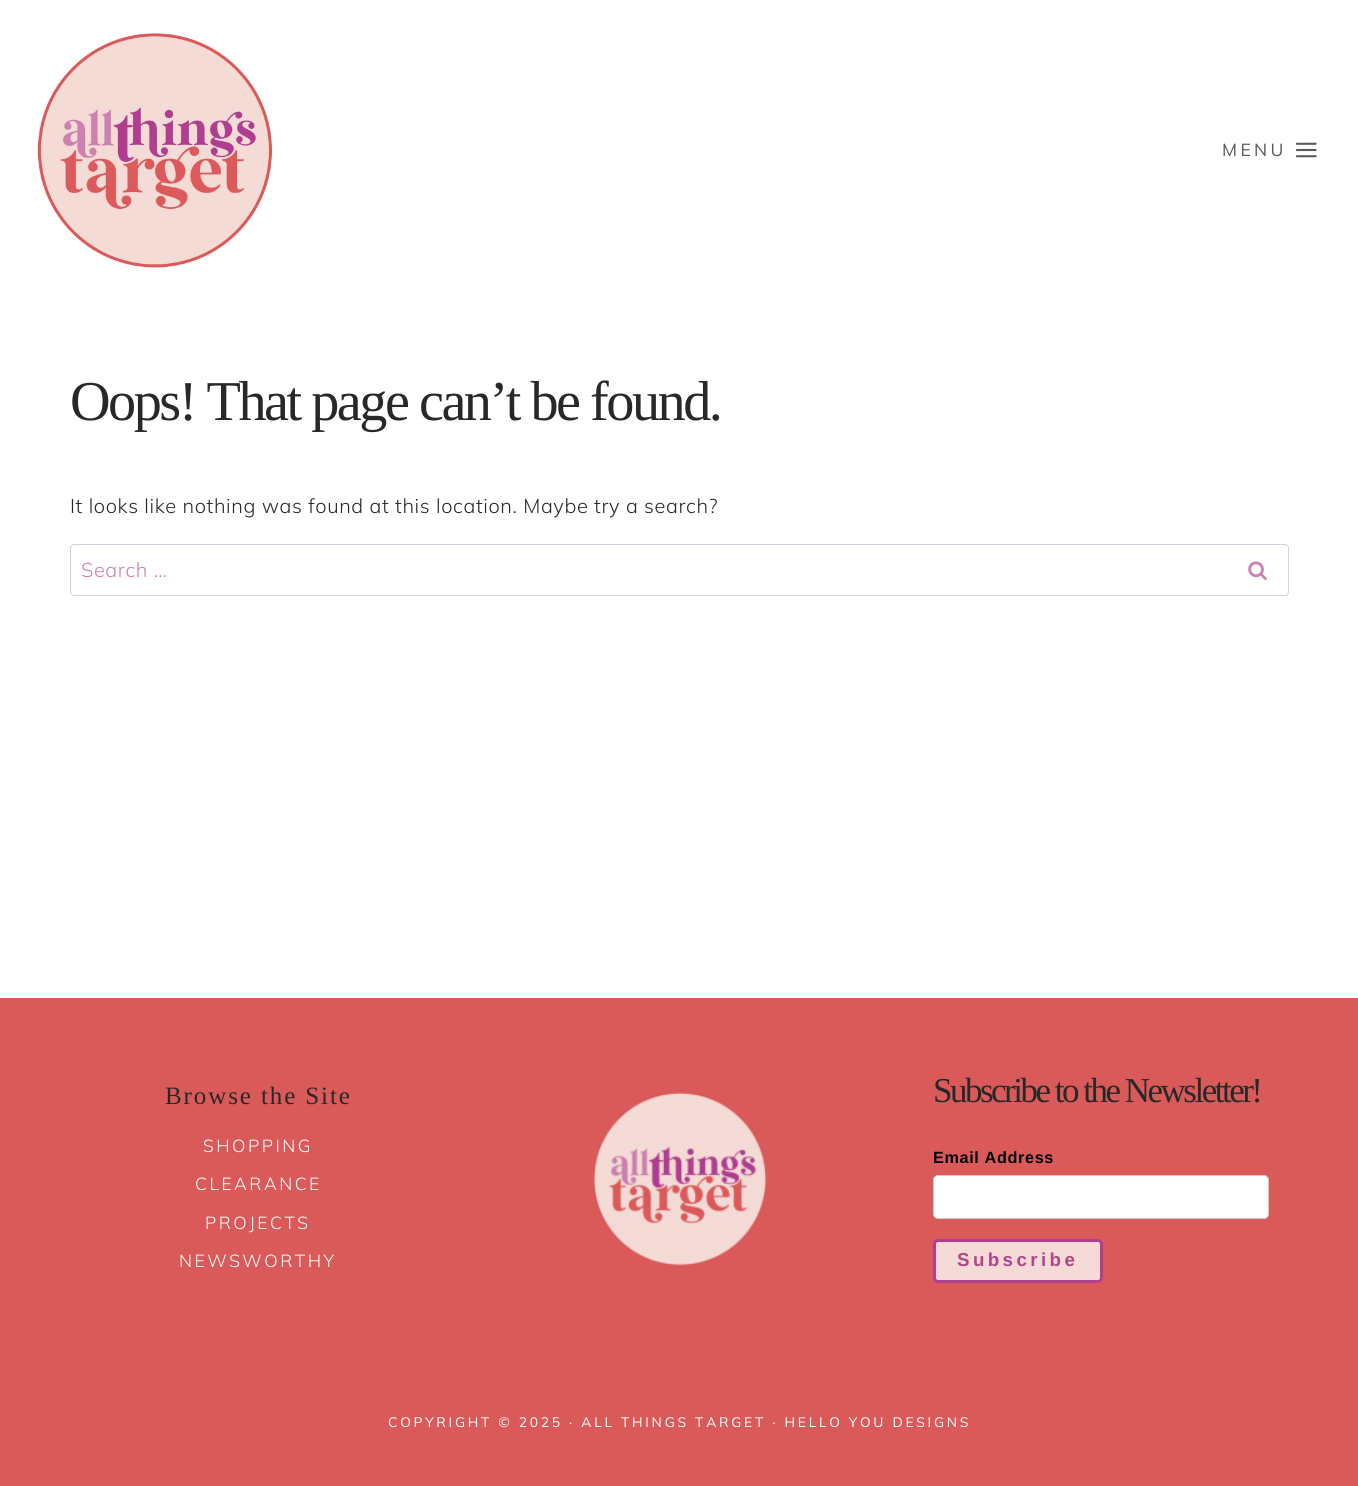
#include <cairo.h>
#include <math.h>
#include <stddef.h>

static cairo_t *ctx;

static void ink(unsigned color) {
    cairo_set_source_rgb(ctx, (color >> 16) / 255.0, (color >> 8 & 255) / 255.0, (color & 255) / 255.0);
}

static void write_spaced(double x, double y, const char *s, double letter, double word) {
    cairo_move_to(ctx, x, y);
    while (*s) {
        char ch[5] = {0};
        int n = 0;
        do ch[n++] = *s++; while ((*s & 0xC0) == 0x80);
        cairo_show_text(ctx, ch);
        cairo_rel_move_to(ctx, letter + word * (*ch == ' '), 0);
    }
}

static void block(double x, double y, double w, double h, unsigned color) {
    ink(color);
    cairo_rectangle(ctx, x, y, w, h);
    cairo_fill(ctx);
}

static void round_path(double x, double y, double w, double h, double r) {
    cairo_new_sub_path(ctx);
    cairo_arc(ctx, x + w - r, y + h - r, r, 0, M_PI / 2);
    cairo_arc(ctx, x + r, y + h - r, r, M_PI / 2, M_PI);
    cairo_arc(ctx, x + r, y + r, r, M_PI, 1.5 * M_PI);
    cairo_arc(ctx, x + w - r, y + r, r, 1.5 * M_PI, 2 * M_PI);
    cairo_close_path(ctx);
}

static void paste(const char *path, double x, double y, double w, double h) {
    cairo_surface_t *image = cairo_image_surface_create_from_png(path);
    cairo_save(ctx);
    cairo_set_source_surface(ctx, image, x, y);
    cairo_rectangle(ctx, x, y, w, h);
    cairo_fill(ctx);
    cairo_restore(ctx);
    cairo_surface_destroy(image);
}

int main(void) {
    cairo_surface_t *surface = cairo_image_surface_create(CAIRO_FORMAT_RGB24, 1358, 1486);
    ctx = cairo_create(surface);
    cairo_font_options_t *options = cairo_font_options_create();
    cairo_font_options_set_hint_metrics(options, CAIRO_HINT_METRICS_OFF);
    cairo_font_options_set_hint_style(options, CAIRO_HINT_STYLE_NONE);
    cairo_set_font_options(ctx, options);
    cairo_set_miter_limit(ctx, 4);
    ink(0xffffff);
    cairo_paint(ctx);
    paste("pic1.png", 37, 33, 236, 235);
    cairo_select_font_face(ctx, "Mulish", CAIRO_FONT_SLANT_NORMAL, CAIRO_FONT_WEIGHT_NORMAL);
    cairo_set_font_size(ctx, 17.5);
    ink(0x595959);
    write_spaced(1222, 156, "MENU", 3.4, 0);
    paste("pic2.png", 1295, 142, 22, 16);
    cairo_select_font_face(ctx, "Liberation Serif", CAIRO_FONT_SLANT_NORMAL, CAIRO_FONT_WEIGHT_NORMAL);
    cairo_set_font_size(ctx, 56.25);
    ink(0x282828);
    write_spaced(70, 420, "Oops! That page can’t be found.", -2.5, 0);
    cairo_select_font_face(ctx, "Mulish Light", CAIRO_FONT_SLANT_NORMAL, CAIRO_FONT_WEIGHT_NORMAL);
    cairo_set_font_size(ctx, 20);
    write_spaced(70, 513, "It looks like nothing was found at this location. Maybe try a search?", 0.62, 0);
    round_path(70.5, 544.5, 1218, 51, 3.5);
    ink(0xcbd5e0);
    cairo_set_line_width(ctx, 1);
    cairo_stroke(ctx);
    ink(0xcc81af);
    write_spaced(81, 577, "Search …", 0.62, 0);
    paste("pic3.png", 1248, 561, 19, 19);
    block(0, 998, 1358, 488, 0xda5a5a);
    cairo_select_font_face(ctx, "Liberation Serif", CAIRO_FONT_SLANT_NORMAL, CAIRO_FONT_WEIGHT_NORMAL);
    cairo_set_font_size(ctx, 25);
    ink(0x282828);
    write_spaced(165, 1104, "Browse the Site", 1.9, 0);
    cairo_select_font_face(ctx, "Mulish Light", CAIRO_FONT_SLANT_NORMAL, CAIRO_FONT_WEIGHT_NORMAL);
    cairo_set_font_size(ctx, 17.5);
    ink(0xffffff);
    write_spaced(203, 1152, "SHOPPING", 2.5, 0);
    write_spaced(195, 1190, "CLEARANCE", 2.5, 0);
    write_spaced(205, 1229, "PROJECTS", 2.5, 0);
    write_spaced(179, 1267, "NEWSWORTHY", 2.5, 0);
    paste("pic4.png", 593, 1092, 174, 174);
    cairo_select_font_face(ctx, "Liberation Serif", CAIRO_FONT_SLANT_NORMAL, CAIRO_FONT_WEIGHT_NORMAL);
    cairo_set_font_size(ctx, 35);
    ink(0x282828);
    write_spaced(933, 1102, "Subscribe to the Newsletter!", -2.5, 0);
    cairo_select_font_face(ctx, "Liberation Sans", CAIRO_FONT_SLANT_NORMAL, CAIRO_FONT_WEIGHT_BOLD);
    cairo_set_font_size(ctx, 16.25);
    ink(0x000000);
    write_spaced(933, 1163, "Email Address", 0.62, 0);
    ink(0xffffff);
    round_path(933.5, 1175.5, 335, 43, 4.5);
    cairo_fill_preserve(ctx);
    ink(0xcccccc);
    cairo_stroke(ctx);
    ink(0xf4dad6);
    round_path(934.5, 1240.5, 167, 41, 3.5);
    cairo_fill_preserve(ctx);
    ink(0xb03f8f);
    cairo_set_line_width(ctx, 3);
    cairo_stroke(ctx);
    cairo_set_font_size(ctx, 18.75);
    ink(0xb34587);
    write_spaced(957, 1266, "Subscribe", 3.4, 0);
    cairo_select_font_face(ctx, "Mulish", CAIRO_FONT_SLANT_NORMAL, CAIRO_FONT_WEIGHT_NORMAL);
    cairo_set_font_size(ctx, 13.75);
    ink(0xffffff);
    write_spaced(388, 1427, "COPYRIGHT © 2025 · ALL THINGS TARGET · HELLO YOU DESIGNS", 2.75, 0);
    cairo_surface_write_to_png(surface, "screenshot.png");
    cairo_font_options_destroy(options);
    cairo_destroy(ctx);
    cairo_surface_destroy(surface);
    return 0;
}
